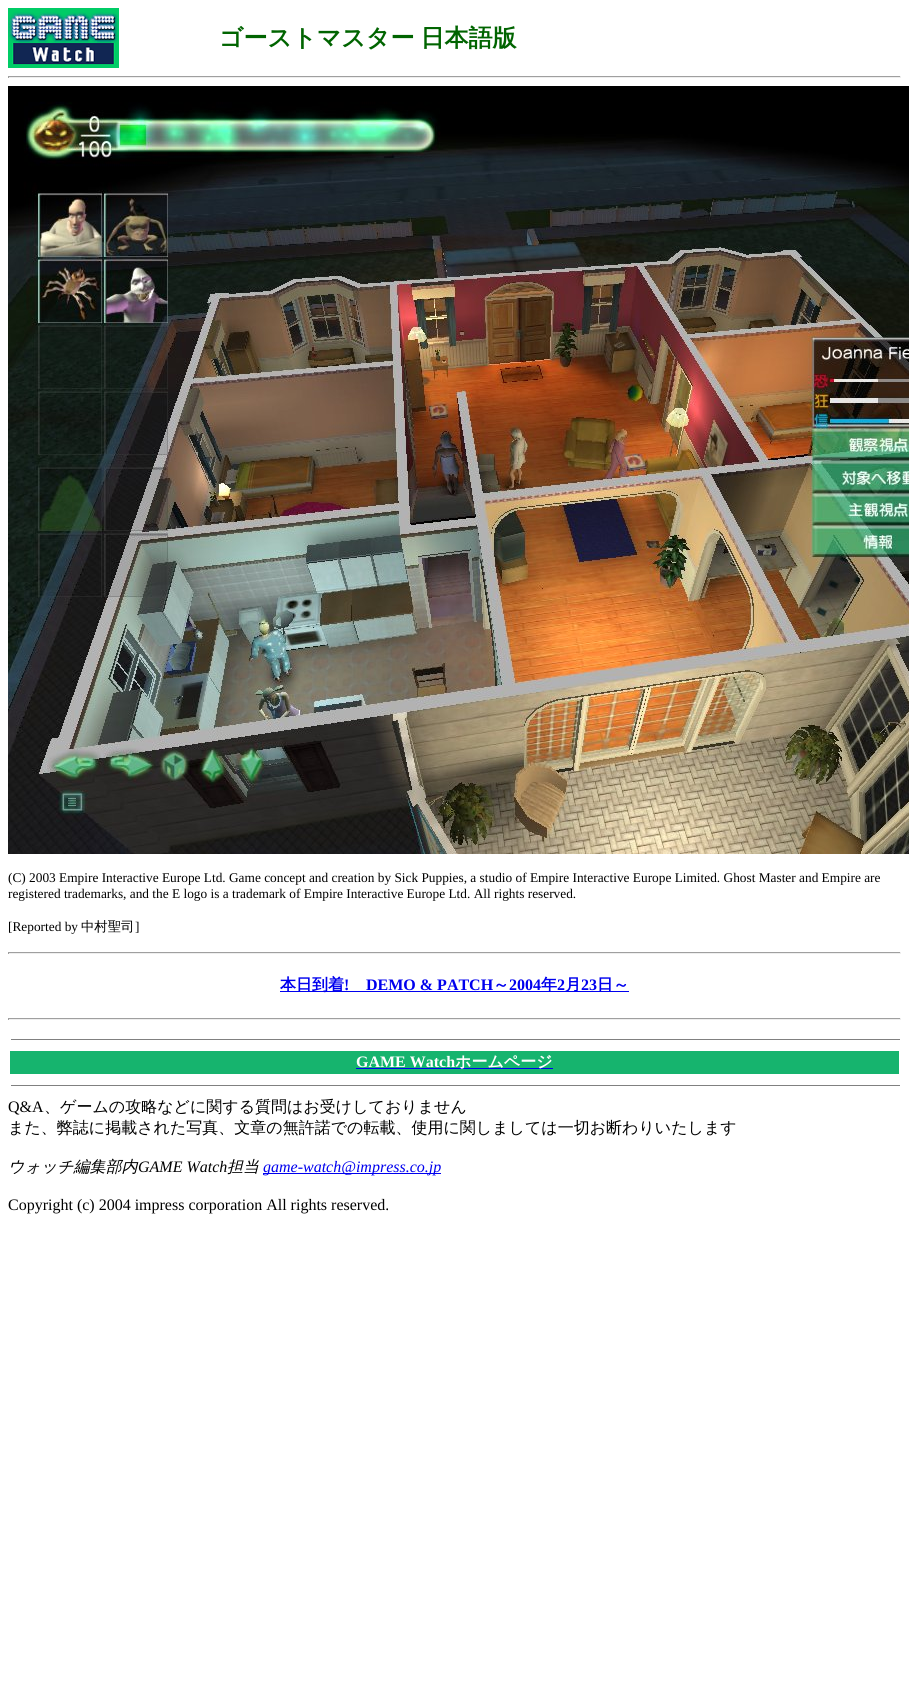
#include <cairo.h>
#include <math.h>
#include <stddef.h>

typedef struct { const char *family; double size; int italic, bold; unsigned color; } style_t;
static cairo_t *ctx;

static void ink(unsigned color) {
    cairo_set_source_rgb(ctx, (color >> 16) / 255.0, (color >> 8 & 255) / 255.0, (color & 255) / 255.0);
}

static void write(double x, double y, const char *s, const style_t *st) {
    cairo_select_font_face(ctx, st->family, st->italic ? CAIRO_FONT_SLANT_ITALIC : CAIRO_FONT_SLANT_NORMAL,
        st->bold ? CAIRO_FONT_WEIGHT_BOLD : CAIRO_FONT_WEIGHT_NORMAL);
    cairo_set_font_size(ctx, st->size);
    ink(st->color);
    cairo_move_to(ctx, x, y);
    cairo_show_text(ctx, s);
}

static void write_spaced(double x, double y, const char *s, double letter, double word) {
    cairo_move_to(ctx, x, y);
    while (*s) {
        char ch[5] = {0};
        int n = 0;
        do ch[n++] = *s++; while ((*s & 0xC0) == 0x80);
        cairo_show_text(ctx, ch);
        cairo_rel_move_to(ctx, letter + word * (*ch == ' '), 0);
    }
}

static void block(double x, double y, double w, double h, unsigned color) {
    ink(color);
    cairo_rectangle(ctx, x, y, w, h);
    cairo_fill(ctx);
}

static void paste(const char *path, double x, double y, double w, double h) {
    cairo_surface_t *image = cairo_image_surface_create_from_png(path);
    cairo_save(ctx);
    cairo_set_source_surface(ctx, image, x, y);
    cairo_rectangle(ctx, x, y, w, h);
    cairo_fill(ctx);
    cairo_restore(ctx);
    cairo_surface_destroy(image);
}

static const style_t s1 = {"Liberation Serif", 13.33, 0, 0, 0x000000};
static const style_t s2 = {"WenQuanYi Zen Hei Medium", 13.33, 0, 0, 0x000000};
static const style_t s3 = {"WenQuanYi Zen Hei", 16, 0, 1, 0x0000ee};
static const style_t s4 = {"Liberation Serif", 16, 0, 1, 0x0000ee};
static const style_t s5 = {"Liberation Serif", 16, 0, 1, 0xffffff};
static const style_t s6 = {"WenQuanYi Zen Hei", 16, 0, 1, 0xffffff};
static const style_t s7 = {"Liberation Serif", 16, 0, 0, 0x000000};
static const style_t s8 = {"WenQuanYi Zen Hei Medium", 16, 0, 0, 0x000000};
static const style_t s9 = {"WenQuanYi Zen Hei Medium", 16, 1, 0, 0x000000};
static const style_t s10 = {"Liberation Serif", 16, 1, 0, 0x000000};
static const style_t s11 = {"Liberation Serif", 16, 1, 0, 0x0000ee};

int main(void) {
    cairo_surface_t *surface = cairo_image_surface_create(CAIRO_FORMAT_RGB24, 909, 1693);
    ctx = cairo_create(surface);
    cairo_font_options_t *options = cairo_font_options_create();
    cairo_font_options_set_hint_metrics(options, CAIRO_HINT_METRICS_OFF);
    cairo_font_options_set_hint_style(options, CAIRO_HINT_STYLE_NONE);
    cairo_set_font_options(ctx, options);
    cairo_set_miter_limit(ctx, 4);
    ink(0xffffff);
    cairo_paint(ctx);
    paste("pic1.png", 8, 8, 111, 60);
    cairo_select_font_face(ctx, "WenQuanYi Zen Hei", CAIRO_FONT_SLANT_NORMAL, CAIRO_FONT_WEIGHT_BOLD);
    cairo_set_font_size(ctx, 24);
    ink(0x006400);
    write_spaced(219, 46, "ゴーストマスター 日本語版", 0, -1);
    block(8, 76, 893, 1, 0x9f9f9f);
    block(900, 76, 1, 2, 0xeeeeee);
    block(8, 77, 893, 1, 0xeeeeee);
    block(8, 76, 1, 2, 0x9f9f9f);
    paste("pic2.png", 8, 86, 901, 768);
    write(8, 882, "(C) 2003 Empire Interactive Europe Ltd. Game concept and creation by Sick Puppies, a studio of Empire Interactive Europe Limited. Ghost Master and Empire are", &s1);
    write(8, 898, "registered trademarks, and the E logo is a trademark of Empire Interactive Europe Ltd. All rights reserved.", &s1);
    write(8, 931, "[Reported by", &s1);
    write(81, 931, "中村聖司", &s2);
    write(135, 931, "]", &s1);
    block(8, 952, 893, 1, 0x9f9f9f);
    block(900, 952, 1, 2, 0xeeeeee);
    block(8, 953, 893, 1, 0xeeeeee);
    block(8, 952, 1, 2, 0x9f9f9f);
    block(280, 991, 349, 1, 0x0000ee);
    write(280, 990, "本日到着", &s3);
    write(344, 990, "!", &s4);
    write(366, 990, "DEMO & PATCH", &s4);
    write(493, 990, "～", &s3);
    write(509, 990, "2004", &s4);
    write(541, 990, "年", &s3);
    write(557, 990, "2", &s4);
    write(565, 990, "月", &s3);
    write(581, 990, "23", &s4);
    write(597, 990, "日～", &s3);
    block(8, 1018, 893, 1, 0x9f9f9f);
    block(900, 1018, 1, 2, 0xeeeeee);
    block(8, 1019, 893, 1, 0xeeeeee);
    block(8, 1018, 1, 2, 0x9f9f9f);
    block(11, 1039, 889, 1, 0x808080);
    block(10, 1051, 889, 23, 0x16b46e);
    write(356, 1067, "GAME Watch", &s5);
    block(356, 1068, 197, 1, 0x0000ee);
    write(455, 1067, "ホームページ", &s6);
    block(11, 1085, 889, 1, 0x808080);
    write(8, 1112, "Q&A", &s7);
    write(44, 1112, "、ゲームの攻略などに関する質問はお受けしておりません", &s8);
    write(8, 1133, "また、弊誌に掲載された写真、文章の無許諾での転載、使用に関しましては一切お断わりいたします", &s8);
    write(8, 1172, "ウォッチ編集部内", &s9);
    write(138, 1172, "GAME Watch", &s10);
    write(227, 1172, "担当", &s9);
    block(263, 1173, 178, 1, 0x0000ee);
    write(263, 1172, "game-watch@impress.co.jp", &s11);
    write(8, 1210, "Copyright (c) 2004 impress corporation All rights reserved.", &s7);
    cairo_surface_write_to_png(surface, "screenshot.png");
    cairo_font_options_destroy(options);
    cairo_destroy(ctx);
    cairo_surface_destroy(surface);
    return 0;
}
